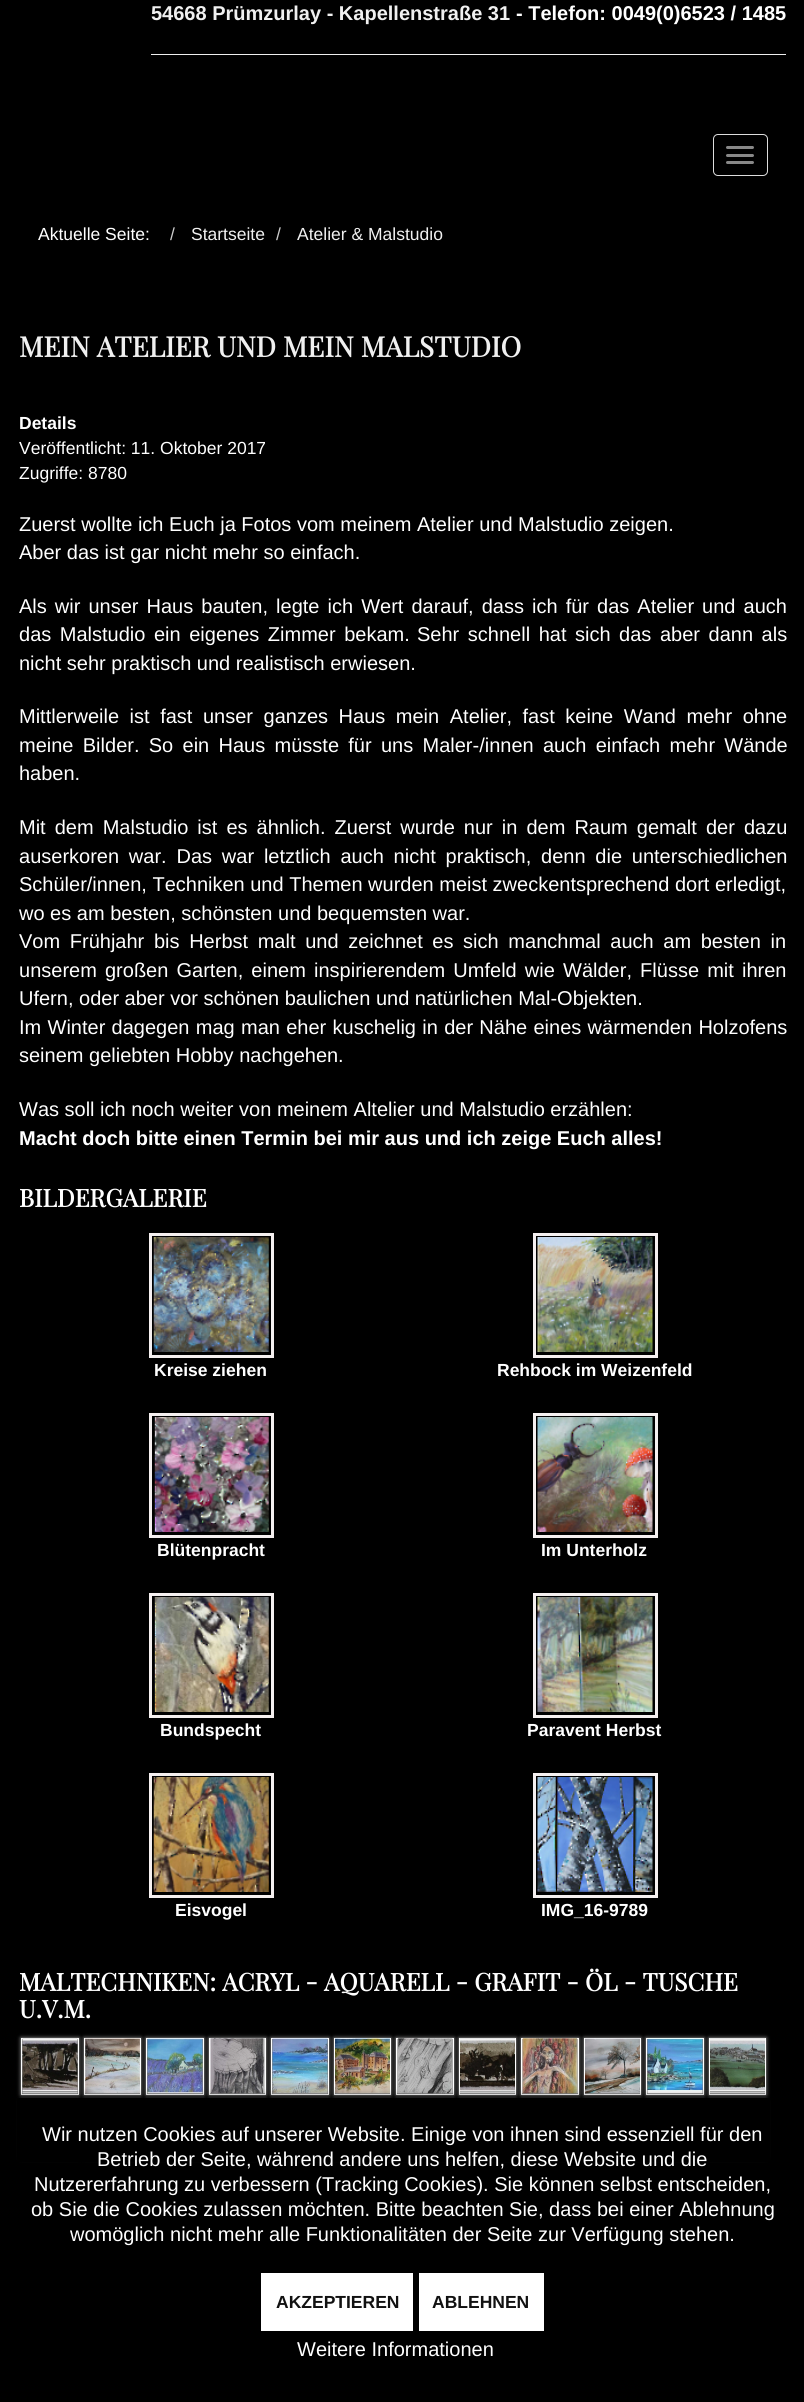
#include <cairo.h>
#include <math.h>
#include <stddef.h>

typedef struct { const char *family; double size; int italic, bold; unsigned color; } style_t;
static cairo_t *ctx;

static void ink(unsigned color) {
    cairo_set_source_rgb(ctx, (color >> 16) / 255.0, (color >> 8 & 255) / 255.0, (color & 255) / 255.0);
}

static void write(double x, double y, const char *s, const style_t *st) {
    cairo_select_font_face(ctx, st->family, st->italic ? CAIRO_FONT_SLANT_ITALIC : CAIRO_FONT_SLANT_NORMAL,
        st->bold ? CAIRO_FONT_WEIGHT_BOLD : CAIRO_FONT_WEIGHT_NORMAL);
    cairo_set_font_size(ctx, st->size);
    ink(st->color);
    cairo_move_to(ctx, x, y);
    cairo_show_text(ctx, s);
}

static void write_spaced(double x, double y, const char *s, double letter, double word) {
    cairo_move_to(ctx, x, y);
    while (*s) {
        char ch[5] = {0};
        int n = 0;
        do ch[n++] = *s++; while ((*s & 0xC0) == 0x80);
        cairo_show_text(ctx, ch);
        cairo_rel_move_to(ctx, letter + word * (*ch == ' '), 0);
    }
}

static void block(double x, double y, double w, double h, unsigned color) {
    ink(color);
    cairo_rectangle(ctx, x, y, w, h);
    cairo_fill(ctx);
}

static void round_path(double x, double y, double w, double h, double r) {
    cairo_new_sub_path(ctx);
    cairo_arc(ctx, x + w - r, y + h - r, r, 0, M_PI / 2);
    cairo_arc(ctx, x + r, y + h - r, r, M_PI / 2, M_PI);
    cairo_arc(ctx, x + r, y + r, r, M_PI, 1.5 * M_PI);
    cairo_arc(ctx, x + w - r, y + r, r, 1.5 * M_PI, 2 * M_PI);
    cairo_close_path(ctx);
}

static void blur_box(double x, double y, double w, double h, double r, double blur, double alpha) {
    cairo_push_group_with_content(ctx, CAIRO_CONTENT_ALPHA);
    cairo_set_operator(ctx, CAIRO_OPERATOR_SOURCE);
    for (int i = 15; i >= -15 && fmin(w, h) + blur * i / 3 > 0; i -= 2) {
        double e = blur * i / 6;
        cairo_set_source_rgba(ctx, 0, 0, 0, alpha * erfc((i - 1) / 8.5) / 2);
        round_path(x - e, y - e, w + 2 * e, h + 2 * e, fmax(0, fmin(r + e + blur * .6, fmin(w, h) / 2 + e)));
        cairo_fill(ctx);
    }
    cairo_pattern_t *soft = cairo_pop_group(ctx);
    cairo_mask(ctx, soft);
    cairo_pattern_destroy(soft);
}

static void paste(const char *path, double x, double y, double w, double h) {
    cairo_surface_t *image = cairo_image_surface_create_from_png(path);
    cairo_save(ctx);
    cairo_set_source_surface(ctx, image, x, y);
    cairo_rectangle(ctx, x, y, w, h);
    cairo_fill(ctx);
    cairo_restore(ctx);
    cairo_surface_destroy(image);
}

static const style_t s1 = {"Liberation Sans", 20, 0, 1, 0xf0f0f0};
static const style_t s2 = {"Liberation Sans", 20, 0, 1, 0xffffff};
static const style_t s3 = {"Liberation Sans", 17.5, 0, 0, 0xffffff};
static const style_t s4 = {"Liberation Sans", 17.5, 0, 0, 0xcccccc};
static const style_t s5 = {"Liberation Sans", 17.5, 0, 0, 0xf0f0f0};
static const style_t s6 = {"Playfair Display SC", 28, 0, 1, 0xf0f0f0};
static const style_t s7 = {"Liberation Sans", 17.5, 0, 1, 0xffffff};
static const style_t s8 = {"Liberation Sans", 20, 0, 0, 0xffffff};
static const style_t s9 = {"Playfair Display SC", 24.5, 0, 1, 0xffffff};
static const style_t s10 = {"Liberation Sans", 17.5, 0, 1, 0x111111};

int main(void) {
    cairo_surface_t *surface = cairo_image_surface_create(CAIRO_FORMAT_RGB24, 804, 2402);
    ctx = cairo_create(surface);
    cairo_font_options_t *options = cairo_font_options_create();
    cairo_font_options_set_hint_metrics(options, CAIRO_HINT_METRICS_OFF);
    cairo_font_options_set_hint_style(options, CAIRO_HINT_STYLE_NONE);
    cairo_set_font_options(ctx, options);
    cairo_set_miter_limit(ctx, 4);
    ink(0x000000);
    cairo_paint(ctx);
    write(151, 20, "54668 Prümzurlay - Kapellenstraße 31", &s1);
    write(516, 20, "- Telefon: 0049(0)6523 / 1485", &s2);
    block(151, 54, 635, 1, 0xeeeeee);
    round_path(713.5, 134.5, 54, 41, 4.5);
    ink(0xdddddd);
    cairo_set_line_width(ctx, 1);
    cairo_stroke(ctx);
    ink(0x888888);
    round_path(726, 146, 28, 3, 1.5);
    cairo_fill(ctx);
    round_path(726, 154, 28, 3, 1.5);
    cairo_fill(ctx);
    round_path(726, 161, 28, 3, 1.5);
    cairo_fill(ctx);
    write(38, 240, "Aktuelle Seite:", &s3);
    write(170, 240, "/", &s4);
    write(191, 240, "Startseite", &s5);
    write(276, 240, "/", &s4);
    write(297, 240, "Atelier & Malstudio", &s5);
    write(19, 357, "MEIN ATELIER UND MEIN MALSTUDIO", &s6);
    write(19, 429, "Details", &s7);
    write(19, 454, "Veröffentlicht: 11. Oktober 2017", &s3);
    write(19, 479, "Zugriffe: 8780", &s3);
    write(19, 531, "Zuerst wollte ich Euch ja Fotos vom meinem Atelier und Malstudio zeigen.", &s8);
    write(19, 559, "Aber das ist gar nicht mehr so einfach.", &s8);
    write_spaced(19, 613, "Als wir unser Haus bauten, legte ich Wert darauf, dass ich für das Atelier und auch", 0, 2.5);
    write_spaced(19, 641, "das Malstudio ein eigenes Zimmer bekam.", 0, 3);
    write_spaced(417, 641, "Sehr schnell hat sich das aber dann als", 0, 3);
    write(19, 670, "nicht sehr praktisch und realistisch erwiesen.", &s8);
    write_spaced(19, 723, "Mittlerweile ist fast unser ganzes Haus mein Atelier, fast keine Wand mehr ohne", 0, 5);
    write_spaced(19, 752, "meine Bilder. So ein Haus müsste für uns Maler-/innen auch einfach mehr Wände", 0, 3.75);
    write(19, 780, "haben.", &s8);
    write_spaced(19, 834, "Mit dem Malstudio ist es ähnlich. Zuerst wurde nur in dem Raum gemalt der dazu", 0, 3.5);
    write_spaced(19, 863, "auserkoren war. Das war letztlich auch nicht praktisch, denn die unterschiedlichen", 0, 4.25);
    write(19, 891, "Schüler/innen, Techniken und Themen wurden meist zweckentsprechend dort erledigt,", &s8);
    write(19, 920, "wo es am besten, schönsten und bequemsten war.", &s8);
    write_spaced(19, 948, "Vom Frühjahr bis Herbst malt und zeichnet es sich manchmal auch am besten in", 0, 4.1);
    write_spaced(19, 977, "unserem großen Garten, einem inspirierendem Umfeld wie Wälder, Flüsse mit ihren", 0, 2.6);
    write(19, 1005, "Ufern, oder aber vor schönen baulichen und natürlichen Mal-Objekten.", &s8);
    write_spaced(19, 1034, "Im Winter dagegen mag man eher kuschelig in der Nähe eines wärmenden Holzofens", 0, 0.75);
    write(19, 1062, "seinem geliebten Hobby nachgehen.", &s8);
    write(19, 1116, "Was soll ich noch weiter von meinem Altelier und Malstudio erzählen:", &s8);
    write(19, 1145, "Macht doch bitte einen Termin bei mir aus und ich zeige Euch alles!", &s2);
    write(19, 1207, "BILDERGALERIE", &s9);
    cairo_rectangle(ctx, 150.5, 1234.5, 122, 122);
    ink(0xf5f0f0);
    cairo_set_line_width(ctx, 3);
    cairo_stroke(ctx);
    paste("pic1.png", 153, 1237, 116, 115);
    write(154, 1376, "Kreise ziehen", &s7);
    cairo_rectangle(ctx, 534.5, 1234.5, 122, 122);
    ink(0xf5f0f0);
    cairo_stroke(ctx);
    paste("pic2.png", 537, 1237, 116, 115);
    write(497, 1376, "Rehbock im Weizenfeld", &s7);
    cairo_rectangle(ctx, 150.5, 1414.5, 122, 122);
    ink(0xf5f0f0);
    cairo_stroke(ctx);
    paste("pic3.png", 153, 1417, 116, 115);
    write(157, 1556, "Blütenpracht", &s7);
    cairo_rectangle(ctx, 534.5, 1414.5, 122, 122);
    ink(0xf5f0f0);
    cairo_stroke(ctx);
    paste("pic4.png", 537, 1417, 116, 115);
    write(541, 1556, "Im Unterholz", &s7);
    cairo_rectangle(ctx, 150.5, 1594.5, 122, 122);
    ink(0xf5f0f0);
    cairo_stroke(ctx);
    paste("pic5.png", 154, 1597, 115, 115);
    write(160, 1736, "Bundspecht", &s7);
    cairo_rectangle(ctx, 534.5, 1594.5, 122, 122);
    ink(0xf5f0f0);
    cairo_stroke(ctx);
    paste("pic6.png", 537, 1597, 116, 115);
    write(527, 1736, "Paravent Herbst", &s7);
    cairo_rectangle(ctx, 150.5, 1774.5, 122, 122);
    ink(0xf5f0f0);
    cairo_stroke(ctx);
    paste("pic7.png", 153, 1777, 116, 115);
    write(175, 1916, "Eisvogel", &s7);
    cairo_rectangle(ctx, 534.5, 1774.5, 122, 122);
    ink(0xf5f0f0);
    cairo_stroke(ctx);
    paste("pic8.png", 537, 1777, 116, 115);
    write(541, 1916, "IMG_16-9789", &s7);
    write(19, 1991, "MALTECHNIKEN: ACRYL - AQUARELL - GRAFIT - ÖL - TUSCHE", &s9);
    write(19, 2018, "U.V.M.", &s9);
    ink(0xaaaaaa);
    blur_box(21, 2038, 58, 57, 0, 2, 1);
    cairo_rectangle(ctx, 21.5, 2038.5, 57, 56);
    ink(0xffffff);
    cairo_set_line_width(ctx, 1);
    cairo_stroke(ctx);
    paste("pic9.png", 22, 2038, 56, 56);
    ink(0xaaaaaa);
    blur_box(84, 2038, 57, 57, 0, 2, 1);
    cairo_rectangle(ctx, 84.5, 2038.5, 56, 56);
    ink(0xffffff);
    cairo_stroke(ctx);
    paste("pic10.png", 85, 2038, 55, 56);
    ink(0xaaaaaa);
    blur_box(146, 2038, 58, 57, 0, 2, 1);
    cairo_rectangle(ctx, 146.5, 2038.5, 57, 56);
    ink(0xffffff);
    cairo_stroke(ctx);
    paste("pic11.png", 147, 2038, 56, 56);
    ink(0xaaaaaa);
    blur_box(209, 2038, 57, 57, 0, 2, 1);
    cairo_rectangle(ctx, 209.5, 2038.5, 56, 56);
    ink(0xffffff);
    cairo_stroke(ctx);
    paste("pic12.png", 210, 2038, 55, 56);
    ink(0xaaaaaa);
    blur_box(271, 2038, 58, 57, 0, 2, 1);
    cairo_rectangle(ctx, 271.5, 2038.5, 57, 56);
    ink(0xffffff);
    cairo_stroke(ctx);
    paste("pic13.png", 272, 2038, 56, 56);
    ink(0xaaaaaa);
    blur_box(334, 2038, 57, 57, 0, 2, 1);
    cairo_rectangle(ctx, 334.5, 2038.5, 56, 56);
    ink(0xffffff);
    cairo_stroke(ctx);
    paste("pic14.png", 335, 2038, 55, 56);
    ink(0xaaaaaa);
    blur_box(396, 2038, 58, 57, 0, 2, 1);
    cairo_rectangle(ctx, 396.5, 2038.5, 57, 56);
    ink(0xffffff);
    cairo_stroke(ctx);
    paste("pic15.png", 397, 2038, 56, 56);
    ink(0xaaaaaa);
    blur_box(459, 2038, 57, 57, 0, 2, 1);
    cairo_rectangle(ctx, 459.5, 2038.5, 56, 56);
    ink(0xffffff);
    cairo_stroke(ctx);
    paste("pic16.png", 460, 2038, 55, 56);
    ink(0xaaaaaa);
    blur_box(521, 2038, 58, 57, 0, 2, 1);
    cairo_rectangle(ctx, 521.5, 2038.5, 57, 56);
    ink(0xffffff);
    cairo_stroke(ctx);
    paste("pic17.png", 522, 2038, 56, 56);
    ink(0xaaaaaa);
    blur_box(584, 2038, 57, 57, 0, 2, 1);
    cairo_rectangle(ctx, 584.5, 2038.5, 56, 56);
    ink(0xffffff);
    cairo_stroke(ctx);
    paste("pic18.png", 585, 2038, 55, 56);
    ink(0xaaaaaa);
    blur_box(646, 2038, 58, 57, 0, 2, 1);
    cairo_rectangle(ctx, 646.5, 2038.5, 57, 56);
    ink(0xffffff);
    cairo_stroke(ctx);
    paste("pic19.png", 647, 2038, 56, 56);
    ink(0xaaaaaa);
    blur_box(709, 2038, 57, 57, 0, 2, 1);
    cairo_rectangle(ctx, 709.5, 2038.5, 56, 56);
    ink(0xffffff);
    cairo_stroke(ctx);
    paste("pic20.png", 710, 2038, 55, 56);
    ink(0xaaaaaa);
    blur_box(21, 2100, 58, 58, 0, 2, 1);
    blur_box(84, 2100, 57, 58, 0, 2, 1);
    blur_box(146, 2100, 58, 58, 0, 2, 1);
    blur_box(209, 2100, 57, 58, 0, 2, 1);
    blur_box(271, 2100, 58, 58, 0, 2, 1);
    blur_box(334, 2100, 57, 58, 0, 2, 1);
    blur_box(396, 2100, 58, 58, 0, 2, 1);
    blur_box(459, 2100, 57, 58, 0, 2, 1);
    blur_box(521, 2100, 58, 58, 0, 2, 1);
    blur_box(584, 2100, 57, 58, 0, 2, 1);
    blur_box(646, 2100, 58, 58, 0, 2, 1);
    blur_box(709, 2100, 57, 58, 0, 2, 1);
    ink(0x000000);
    blur_box(-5, 2093, 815, 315, 0, 3, 0.21);
    block(17, 2098, 753, 64, 0x000000);
    write(42, 2141, "Wir nutzen Cookies auf unserer Website. Einige von ihnen sind essenziell für den", &s8);
    write(97, 2166, "Betrieb der Seite, während andere uns helfen, diese Website und die", &s8);
    write(34, 2191, "Nutzererfahrung zu verbessern (Tracking Cookies). Sie können selbst entscheiden,", &s8);
    write(31, 2216, "ob Sie die Cookies zulassen möchten. Bitte beachten Sie, dass bei einer Ablehnung", &s8);
    write(70, 2241, "womöglich nicht mehr alle Funktionalitäten der Seite zur Verfügung stehen.", &s8);
    block(261, 2273, 152, 58, 0xffffff);
    write(276, 2308, "AKZEPTIEREN", &s10);
    block(419, 2273, 125, 58, 0xffffff);
    write(432, 2308, "ABLEHNEN", &s10);
    write(297, 2356, "Weitere Informationen", &s8);
    cairo_surface_write_to_png(surface, "screenshot.png");
    cairo_font_options_destroy(options);
    cairo_destroy(ctx);
    cairo_surface_destroy(surface);
    return 0;
}
